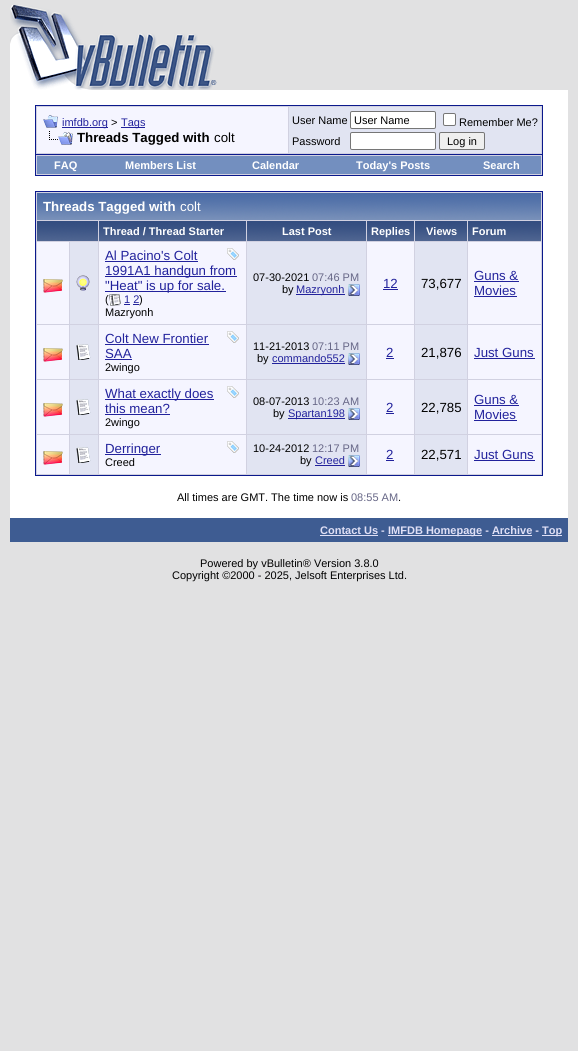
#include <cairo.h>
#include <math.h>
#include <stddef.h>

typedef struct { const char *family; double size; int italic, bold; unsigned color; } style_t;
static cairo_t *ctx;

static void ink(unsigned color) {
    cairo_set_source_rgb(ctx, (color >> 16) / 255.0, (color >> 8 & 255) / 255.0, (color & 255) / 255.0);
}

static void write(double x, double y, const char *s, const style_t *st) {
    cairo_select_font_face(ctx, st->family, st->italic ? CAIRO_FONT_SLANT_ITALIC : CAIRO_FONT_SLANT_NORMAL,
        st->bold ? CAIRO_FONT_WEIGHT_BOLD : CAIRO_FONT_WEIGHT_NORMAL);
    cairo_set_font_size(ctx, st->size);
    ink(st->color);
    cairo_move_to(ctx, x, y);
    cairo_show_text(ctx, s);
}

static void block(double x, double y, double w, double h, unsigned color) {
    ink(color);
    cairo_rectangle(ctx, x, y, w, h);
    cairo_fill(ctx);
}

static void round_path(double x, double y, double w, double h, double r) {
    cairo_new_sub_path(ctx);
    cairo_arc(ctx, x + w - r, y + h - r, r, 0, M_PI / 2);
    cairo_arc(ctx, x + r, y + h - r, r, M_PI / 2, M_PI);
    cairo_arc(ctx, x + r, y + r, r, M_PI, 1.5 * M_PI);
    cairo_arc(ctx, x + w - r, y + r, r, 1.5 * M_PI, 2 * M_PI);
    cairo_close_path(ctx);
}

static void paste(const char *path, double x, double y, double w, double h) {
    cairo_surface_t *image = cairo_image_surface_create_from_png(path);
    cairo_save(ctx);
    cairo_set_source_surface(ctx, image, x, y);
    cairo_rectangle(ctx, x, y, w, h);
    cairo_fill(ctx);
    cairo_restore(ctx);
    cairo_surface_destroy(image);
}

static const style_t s1 = {"Liberation Sans", 11, 0, 0, 0x22229c};
static const style_t s2 = {"Liberation Sans", 11, 0, 0, 0x000000};
static const style_t s3 = {"Liberation Sans", 13.25, 0, 1, 0x000000};
static const style_t s4 = {"Liberation Sans", 13.25, 0, 0, 0x000000};
static const style_t s5 = {"Liberation Sans", 11, 0, 1, 0xffffff};
static const style_t s6 = {"Liberation Sans", 13.25, 0, 1, 0xffffff};
static const style_t s7 = {"Liberation Sans", 13.25, 0, 0, 0xffffff};
static const style_t s8 = {"Liberation Sans", 13.25, 0, 0, 0x22229c};
static const style_t s9 = {"Liberation Sans", 11, 0, 0, 0x666686};
static const style_t s10 = {"Liberation Sans", 11, 0, 1, 0xe0e0f6};

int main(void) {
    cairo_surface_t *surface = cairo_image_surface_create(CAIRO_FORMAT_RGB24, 578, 1051);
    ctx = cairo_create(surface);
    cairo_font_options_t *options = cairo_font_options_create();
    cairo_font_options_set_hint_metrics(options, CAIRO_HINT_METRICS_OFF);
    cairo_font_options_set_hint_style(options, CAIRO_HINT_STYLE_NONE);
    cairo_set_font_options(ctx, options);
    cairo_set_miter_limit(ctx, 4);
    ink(0xe1e1e2);
    cairo_paint(ctx);
    paste("pic1.png", 10, 5, 207, 85);
    block(10, 90, 558, 428, 0xffffff);
    ink(0xd1d1e1);
    cairo_rectangle(ctx, 35.5, 105.5, 507, 49);
    cairo_fill_preserve(ctx);
    ink(0x0b198c);
    cairo_set_line_width(ctx, 1);
    cairo_stroke(ctx);
    block(37, 107, 251, 46, 0xf5f5ff);
    paste("pic2.png", 43, 115, 15, 13);
    block(62, 127, 46, 1, 0x22229c);
    write(62, 126, "imfdb.org", &s1);
    write(111, 126, ">", &s2);
    block(121, 127, 24, 1, 0x22229c);
    write(121, 126, "Tags", &s1);
    paste("pic3.png", 49, 131, 24, 14);
    write(77, 142, "Threads Tagged with", &s3);
    write(214, 142, "colt", &s4);
    block(289, 107, 252, 46, 0xe1e4f2);
    write(292, 124, "User Name", &s2);
    ink(0xffffff);
    round_path(350.5, 111.5, 85, 17, 1.5);
    cairo_fill_preserve(ctx);
    ink(0x767676);
    cairo_stroke(ctx);
    write(354, 124, "User Name", &s2);
    ink(0xffffff);
    round_path(443.5, 113.5, 12, 12, 1.5);
    cairo_fill_preserve(ctx);
    ink(0x767676);
    cairo_stroke(ctx);
    write(459, 126, "Remember Me?", &s2);
    write(292, 145, "Password", &s2);
    ink(0xffffff);
    round_path(350.5, 132.5, 85, 17, 1.5);
    cairo_fill_preserve(ctx);
    ink(0x767676);
    cairo_stroke(ctx);
    ink(0xefefef);
    round_path(439.5, 132.5, 45, 17, 1.5);
    cairo_fill_preserve(ctx);
    ink(0x767676);
    cairo_stroke(ctx);
    write(447, 145, "Log in", &s2);
    block(36, 155, 506, 20, 0xd1d1e1);
    block(542, 155, 1, 21, 0x0b198c);
    block(35, 175, 508, 1, 0x0b198c);
    block(35, 155, 1, 21, 0x0b198c);
    block(37, 156, 504, 18, 0x738fbf);
    write(54, 169, "FAQ", &s5);
    write(125, 169, "Members List", &s5);
    write(252, 169, "Calendar", &s5);
    write(356, 169, "Today's Posts", &s5);
    write(483, 169, "Search", &s5);
    ink(0xd1d1e1);
    cairo_rectangle(ctx, 35.5, 191.5, 507, 284);
    cairo_fill_preserve(ctx);
    ink(0x0b198c);
    cairo_stroke(ctx);
    paste("pic4.png", 37, 193, 504, 27);
    write(43, 211, "Threads Tagged with", &s6);
    write(180, 211, "colt", &s7);
    paste("pic5.png", 37, 221, 61, 20);
    paste("pic6.png", 99, 221, 147, 20);
    write(103, 235, "Thread / Thread Starter", &s5);
    paste("pic7.png", 247, 221, 119, 20);
    write(282, 235, "Last Post", &s5);
    paste("pic8.png", 367, 221, 47, 20);
    write(371, 235, "Replies", &s5);
    paste("pic9.png", 415, 221, 52, 20);
    write(426, 235, "Views", &s5);
    paste("pic10.png", 468, 221, 73, 20);
    write(472, 235, "Forum", &s5);
    block(37, 242, 32, 82, 0xf5f5ff);
    paste("pic11.png", 43, 279, 20, 14);
    block(70, 242, 28, 82, 0xe1e4f2);
    paste("pic12.png", 76, 275, 14, 16);
    block(99, 242, 147, 82, 0xf5f5ff);
    write(105, 260, "Al Pacino's Colt", &s8);
    block(105, 261, 93, 1, 0x22229c);
    paste("pic13.png", 227, 248, 12, 12);
    block(105, 276, 132, 1, 0x22229c);
    write(105, 275, "1991A1 handgun from", &s8);
    block(105, 291, 121, 1, 0x22229c);
    write(105, 290, "\"Heat\" is up for sale.", &s8);
    write(105, 303, "(", &s2);
    paste("pic14.png", 109, 294, 12, 12);
    write(124, 303, "1 2", &s1);
    block(124, 304, 6, 1, 0x22229c);
    write(139, 303, ")", &s2);
    block(133, 304, 6, 1, 0x22229c);
    write(105, 316, "Mazryonh", &s2);
    block(247, 242, 119, 82, 0xe1e4f2);
    write(253, 281, "07-30-2021", &s2);
    write(312, 281, "07:46 PM", &s9);
    write(282, 293, "by", &s2);
    block(296, 294, 49, 1, 0x22229c);
    write(296, 293, "Mazryonh", &s1);
    paste("pic15.png", 348, 284, 12, 12);
    block(367, 242, 47, 82, 0xf5f5ff);
    write(383, 288, "12", &s8);
    block(383, 289, 15, 1, 0x22229c);
    block(415, 242, 52, 82, 0xe1e4f2);
    write(421, 288, "73,677", &s4);
    block(468, 242, 73, 82, 0xf5f5ff);
    write(474, 280, "Guns &", &s8);
    block(474, 281, 45, 1, 0x22229c);
    write(474, 295, "Movies", &s8);
    block(474, 296, 43, 1, 0x22229c);
    block(37, 325, 32, 54, 0xf5f5ff);
    paste("pic11.png", 43, 348, 20, 14);
    block(70, 325, 28, 54, 0xe1e4f2);
    paste("pic16.png", 76, 344, 15, 16);
    block(99, 325, 147, 54, 0xf5f5ff);
    write(105, 343, "Colt New Frontier", &s8);
    block(105, 344, 104, 1, 0x22229c);
    paste("pic13.png", 227, 331, 12, 12);
    write(105, 358, "SAA", &s8);
    block(105, 359, 27, 1, 0x22229c);
    write(105, 371, "2wingo", &s2);
    block(247, 325, 119, 54, 0xe1e4f2);
    write(253, 350, "11-21-2013", &s2);
    write(312, 350, "07:11 PM", &s9);
    write(257, 362, "by", &s2);
    write(272, 362, "commando552", &s1);
    block(272, 363, 73, 1, 0x22229c);
    paste("pic15.png", 348, 353, 12, 12);
    block(367, 325, 47, 54, 0xf5f5ff);
    write(386, 357, "2", &s8);
    block(386, 358, 8, 1, 0x22229c);
    block(415, 325, 52, 54, 0xe1e4f2);
    write(421, 357, "21,876", &s4);
    block(468, 325, 73, 54, 0xf5f5ff);
    write(474, 357, "Just Guns", &s8);
    block(474, 358, 61, 1, 0x22229c);
    block(37, 380, 32, 54, 0xf5f5ff);
    paste("pic11.png", 43, 403, 20, 14);
    block(70, 380, 28, 54, 0xe1e4f2);
    paste("pic16.png", 76, 399, 15, 16);
    block(99, 380, 147, 54, 0xf5f5ff);
    block(105, 399, 109, 1, 0x22229c);
    write(105, 398, "What exactly does", &s8);
    paste("pic13.png", 227, 386, 12, 12);
    write(105, 413, "this mean?", &s8);
    block(105, 414, 65, 1, 0x22229c);
    write(105, 426, "2wingo", &s2);
    block(247, 380, 119, 54, 0xe1e4f2);
    write(253, 405, "08-07-2013", &s2);
    write(312, 405, "10:23 AM", &s9);
    write(273, 417, "by", &s2);
    block(288, 418, 57, 1, 0x22229c);
    write(288, 417, "Spartan198", &s1);
    paste("pic15.png", 348, 408, 12, 12);
    block(367, 380, 47, 54, 0xf5f5ff);
    write(386, 412, "2", &s8);
    block(386, 413, 8, 1, 0x22229c);
    block(415, 380, 52, 54, 0xe1e4f2);
    write(421, 412, "22,785", &s4);
    block(468, 380, 73, 54, 0xf5f5ff);
    write(474, 404, "Guns &", &s8);
    block(474, 405, 45, 1, 0x22229c);
    write(474, 419, "Movies", &s8);
    block(474, 420, 43, 1, 0x22229c);
    block(37, 435, 32, 39, 0xf5f5ff);
    paste("pic11.png", 43, 451, 20, 14);
    block(70, 435, 28, 39, 0xe1e4f2);
    paste("pic16.png", 76, 447, 15, 16);
    block(99, 435, 147, 39, 0xf5f5ff);
    block(105, 454, 56, 1, 0x22229c);
    write(105, 453, "Derringer", &s8);
    paste("pic13.png", 227, 441, 12, 12);
    write(105, 466, "Creed", &s2);
    block(247, 435, 119, 39, 0xe1e4f2);
    write(253, 452, "10-24-2012", &s2);
    write(312, 452, "12:17 PM", &s9);
    write(300, 464, "by", &s2);
    write(315, 464, "Creed", &s1);
    block(315, 465, 30, 1, 0x22229c);
    paste("pic15.png", 348, 455, 12, 12);
    block(367, 435, 47, 39, 0xf5f5ff);
    write(386, 459, "2", &s8);
    block(386, 460, 8, 1, 0x22229c);
    block(415, 435, 52, 39, 0xe1e4f2);
    write(421, 459, "22,571", &s4);
    block(468, 435, 73, 39, 0xf5f5ff);
    write(474, 459, "Just Guns", &s8);
    block(474, 460, 61, 1, 0x22229c);
    write(177, 501, "All times are GMT. The time now is", &s2);
    write(351, 501, "08:55 AM", &s9);
    write(398, 501, ".", &s2);
    block(10, 518, 558, 24, 0x3e5c92);
    write(320, 534, "Contact Us -", &s10);
    block(320, 535, 58, 1, 0xe0e0f6);
    block(388, 535, 94, 1, 0xe0e0f6);
    write(388, 534, "IMFDB Homepage - Archive -", &s10);
    block(492, 535, 40, 1, 0xe0e0f6);
    block(542, 535, 20, 1, 0xe0e0f6);
    write(542, 534, "Top", &s10);
    write(200, 567, "Powered by vBulletin® Version 3.8.0", &s2);
    write(172, 579, "Copyright ©2000 - 2025, Jelsoft Enterprises Ltd.", &s2);
    cairo_surface_write_to_png(surface, "screenshot.png");
    cairo_font_options_destroy(options);
    cairo_destroy(ctx);
    cairo_surface_destroy(surface);
    return 0;
}
